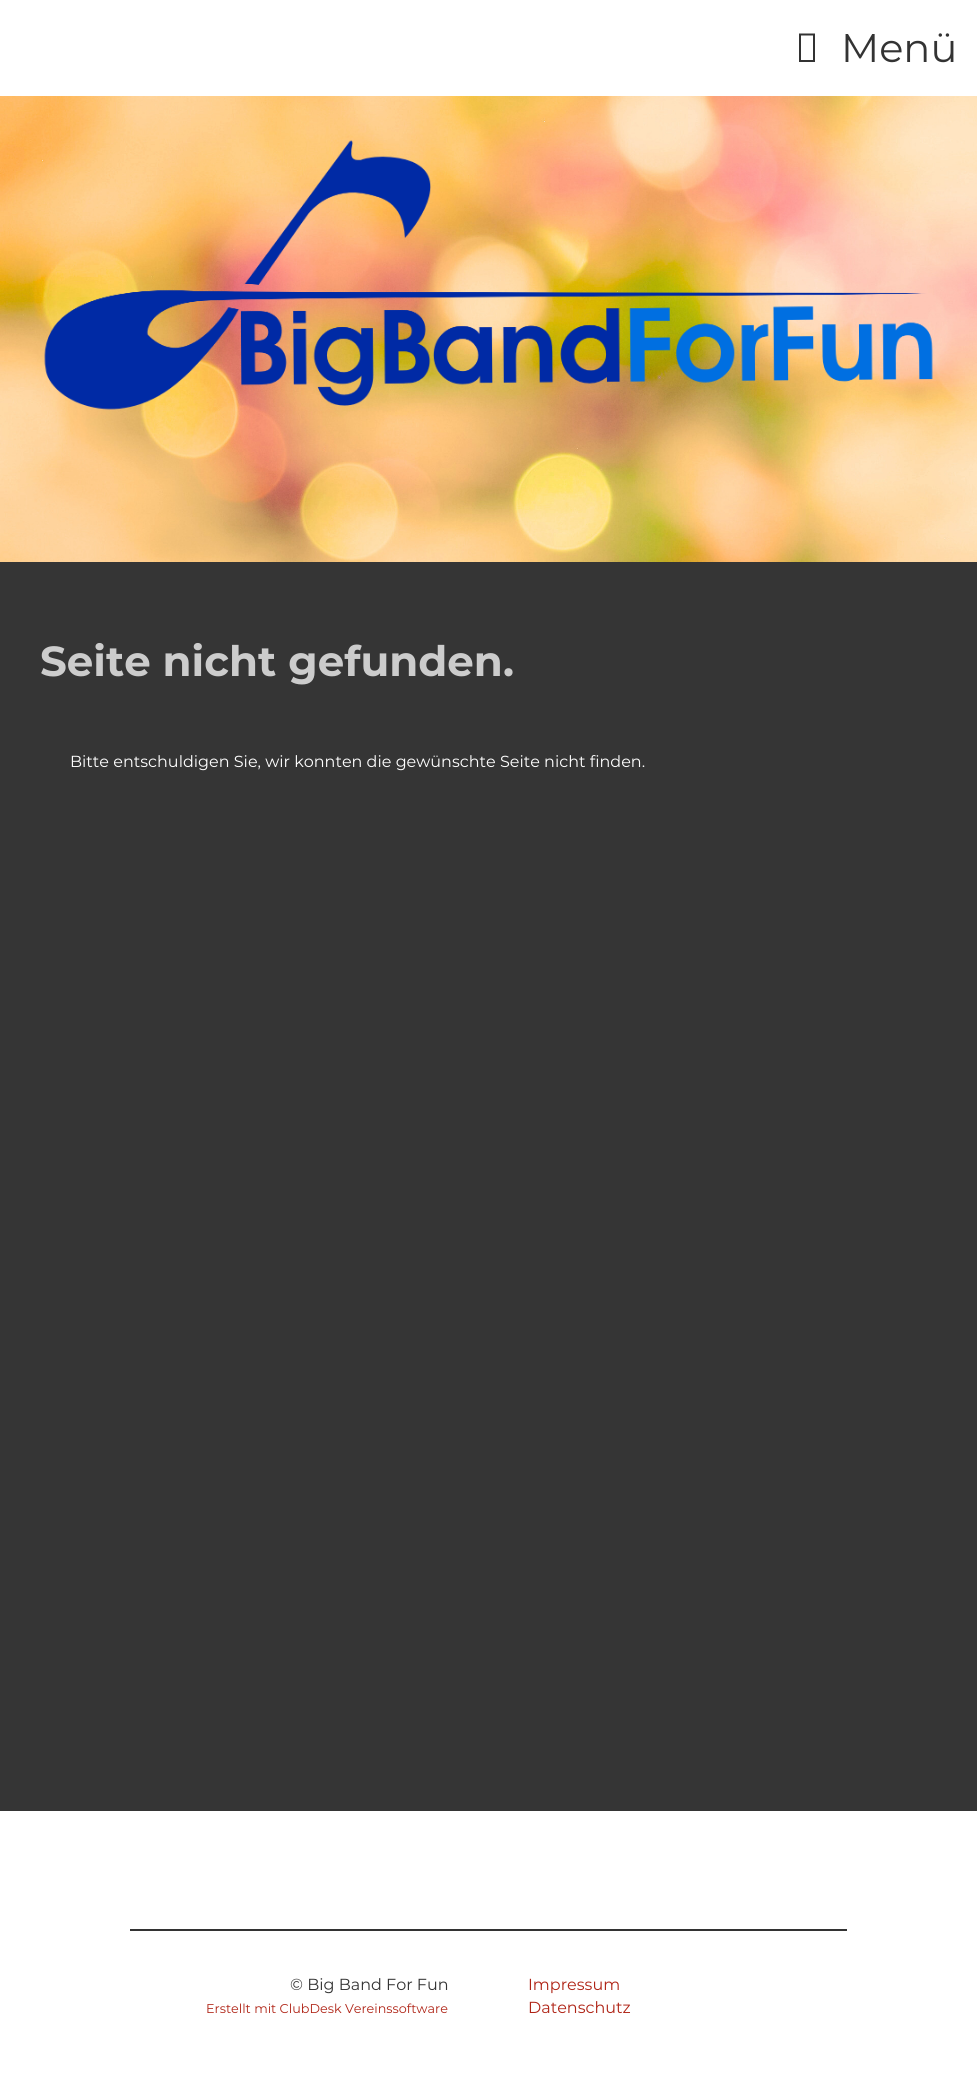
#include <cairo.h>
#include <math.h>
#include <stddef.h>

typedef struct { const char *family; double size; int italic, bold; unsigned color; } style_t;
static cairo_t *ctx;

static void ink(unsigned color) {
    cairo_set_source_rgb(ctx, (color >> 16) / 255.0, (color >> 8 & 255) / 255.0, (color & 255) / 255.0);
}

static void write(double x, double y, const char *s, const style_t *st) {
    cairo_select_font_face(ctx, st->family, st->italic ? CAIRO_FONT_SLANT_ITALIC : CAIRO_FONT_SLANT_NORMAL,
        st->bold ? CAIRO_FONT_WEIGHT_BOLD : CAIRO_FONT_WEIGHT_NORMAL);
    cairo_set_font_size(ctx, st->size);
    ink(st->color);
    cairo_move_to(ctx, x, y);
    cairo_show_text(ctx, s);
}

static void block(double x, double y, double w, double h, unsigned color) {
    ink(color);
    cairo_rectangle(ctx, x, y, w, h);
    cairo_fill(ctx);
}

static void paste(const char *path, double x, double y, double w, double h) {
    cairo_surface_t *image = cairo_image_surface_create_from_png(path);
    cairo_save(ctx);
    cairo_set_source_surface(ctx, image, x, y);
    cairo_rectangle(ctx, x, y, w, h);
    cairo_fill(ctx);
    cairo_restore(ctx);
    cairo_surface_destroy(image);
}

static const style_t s1 = {"Montserrat", 40, 0, 0, 0x333333};
static const style_t s2 = {"Montserrat", 42, 0, 1, 0xcccccc};
static const style_t s3 = {"Montserrat", 16, 0, 0, 0xffffff};
static const style_t s4 = {"Montserrat", 16, 0, 0, 0x333333};
static const style_t s5 = {"Montserrat", 12.75, 0, 0, 0xaf2315};
static const style_t s6 = {"Montserrat", 16, 0, 0, 0xaf2315};

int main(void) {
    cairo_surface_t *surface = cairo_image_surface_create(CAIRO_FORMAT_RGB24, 977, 2084);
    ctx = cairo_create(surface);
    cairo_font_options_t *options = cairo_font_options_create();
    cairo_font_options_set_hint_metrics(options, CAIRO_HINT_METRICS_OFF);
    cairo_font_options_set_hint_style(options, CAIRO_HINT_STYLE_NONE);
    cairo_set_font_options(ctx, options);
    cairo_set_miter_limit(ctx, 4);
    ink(0xffffff);
    cairo_paint(ctx);
    ink(0x333333);
    cairo_new_path(ctx);
    cairo_move_to(ctx, 799, 62);
    cairo_line_to(ctx, 799, 33.5);
    cairo_line_to(ctx, 815, 33.5);
    cairo_line_to(ctx, 815, 62);
    cairo_close_path(ctx);
    cairo_move_to(ctx, 801, 60);
    cairo_line_to(ctx, 813, 60);
    cairo_line_to(ctx, 813, 35.5);
    cairo_line_to(ctx, 801, 35.5);
    cairo_close_path(ctx);
    cairo_fill(ctx);
    write(841, 62, "Menü", &s1);
    paste("pic1.png", 0, 96, 977, 466);
    paste("pic2.png", 44, 140, 889, 270);
    block(0, 562, 977, 1249, 0x353535);
    write(40, 676, "Seite nicht gefunden.", &s2);
    write(70, 767, "Bitte entschuldigen Sie, wir konnten die gewünschte Seite nicht finden.", &s3);
    block(130, 1929, 717, 2, 0x333333);
    write(290, 1990, "© Big Band For Fun", &s4);
    write(206, 2013, "Erstellt mit ClubDesk Vereinssoftware", &s5);
    write(528, 1990, "Impressum", &s6);
    write(528, 2013, "Datenschutz", &s6);
    cairo_surface_write_to_png(surface, "screenshot.png");
    cairo_font_options_destroy(options);
    cairo_destroy(ctx);
    cairo_surface_destroy(surface);
    return 0;
}
